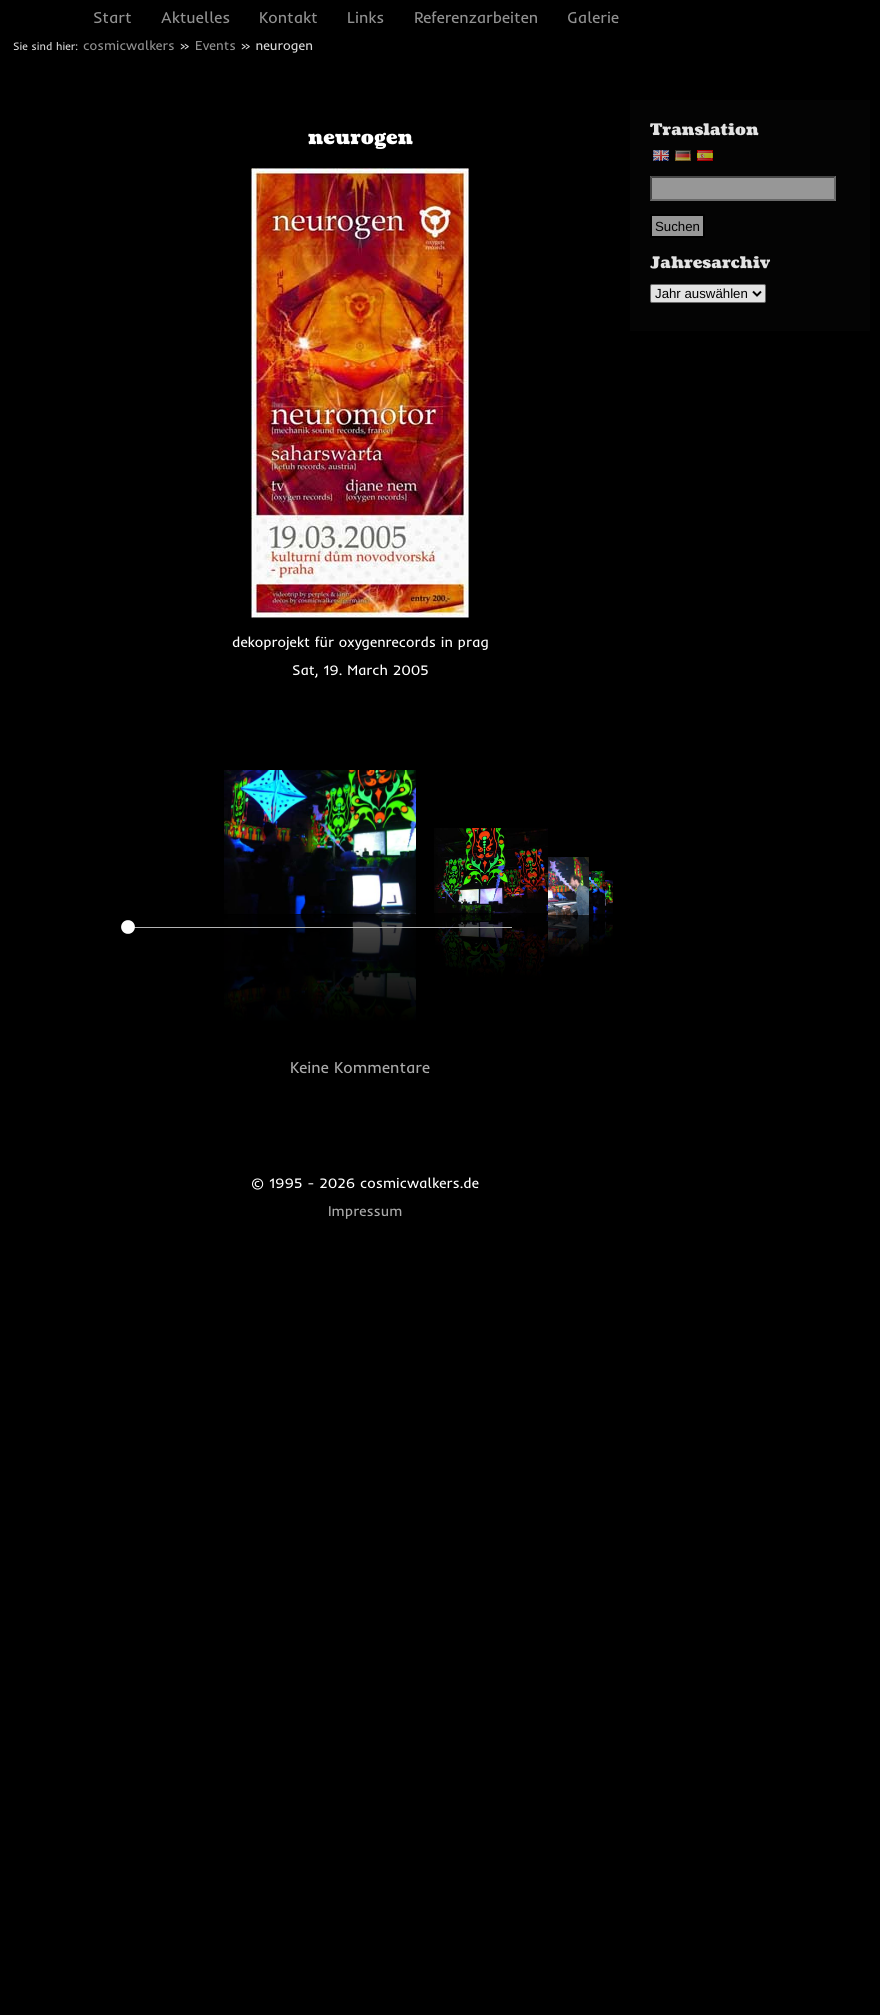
#include <cairo.h>
#include <math.h>
#include <stddef.h>

typedef struct { const char *family; double size; int italic, bold; unsigned color; } style_t;
static cairo_t *ctx;

static void ink(unsigned color) {
    cairo_set_source_rgb(ctx, (color >> 16) / 255.0, (color >> 8 & 255) / 255.0, (color & 255) / 255.0);
}

static void write(double x, double y, const char *s, const style_t *st) {
    cairo_select_font_face(ctx, st->family, st->italic ? CAIRO_FONT_SLANT_ITALIC : CAIRO_FONT_SLANT_NORMAL,
        st->bold ? CAIRO_FONT_WEIGHT_BOLD : CAIRO_FONT_WEIGHT_NORMAL);
    cairo_set_font_size(ctx, st->size);
    ink(st->color);
    cairo_move_to(ctx, x, y);
    cairo_show_text(ctx, s);
}

static void block(double x, double y, double w, double h, unsigned color) {
    ink(color);
    cairo_rectangle(ctx, x, y, w, h);
    cairo_fill(ctx);
}

static void round_path(double x, double y, double w, double h, double r) {
    cairo_new_sub_path(ctx);
    cairo_arc(ctx, x + w - r, y + h - r, r, 0, M_PI / 2);
    cairo_arc(ctx, x + r, y + h - r, r, M_PI / 2, M_PI);
    cairo_arc(ctx, x + r, y + r, r, M_PI, 1.5 * M_PI);
    cairo_arc(ctx, x + w - r, y + r, r, 1.5 * M_PI, 2 * M_PI);
    cairo_close_path(ctx);
}

static void paste(const char *path, double x, double y, double w, double h) {
    cairo_surface_t *image = cairo_image_surface_create_from_png(path);
    cairo_save(ctx);
    cairo_set_source_surface(ctx, image, x, y);
    cairo_rectangle(ctx, x, y, w, h);
    cairo_fill(ctx);
    cairo_restore(ctx);
    cairo_surface_destroy(image);
}

static const style_t s1 = {"Inder", 16, 0, 0, 0x919191};
static const style_t s2 = {"Inder", 11, 0, 0, 0xd9d9d9};
static const style_t s3 = {"Inder", 13.25, 0, 0, 0x919191};
static const style_t s4 = {"Inder", 13.25, 0, 0, 0xd9d9d9};
static const style_t s5 = {"Coustard Black", 19.25, 0, 0, 0xffffff};
static const style_t s6 = {"Inder", 14.4, 0, 0, 0xffffff};
static const style_t s7 = {"Inder", 16, 0, 0, 0xaaaaaa};
static const style_t s8 = {"Coustard Black", 16, 0, 0, 0xe3e3e3};
static const style_t s9 = {"Liberation Sans", 13.25, 0, 0, 0x000000};
static const style_t s10 = {"Inder", 14.4, 0, 0, 0xaaaaaa};

int main(void) {
    cairo_surface_t *surface = cairo_image_surface_create(CAIRO_FORMAT_RGB24, 880, 2015);
    ctx = cairo_create(surface);
    cairo_font_options_t *options = cairo_font_options_create();
    cairo_font_options_set_hint_metrics(options, CAIRO_HINT_METRICS_OFF);
    cairo_font_options_set_hint_style(options, CAIRO_HINT_STYLE_NONE);
    cairo_set_font_options(ctx, options);
    cairo_set_miter_limit(ctx, 4);
    cairo_pattern_t *gradient;
    ink(0x000000);
    cairo_paint(ctx);
    write(93, 23, "Start", &s1);
    write(161, 23, "Aktuelles", &s1);
    write(259, 23, "Kontakt", &s1);
    write(347, 23, "Links", &s1);
    write(414, 23, "Referenzarbeiten", &s1);
    write(567, 23, "Galerie", &s1);
    write(13, 50, "Sie sind hier:", &s2);
    write(83, 50, "cosmicwalkers", &s3);
    write(179, 50, "»", &s4);
    write(195, 50, "Events", &s3);
    write(240, 50, "» neurogen", &s4);
    write(308, 144, "neurogen", &s5);
    paste("pic1.png", 251, 168, 218, 450);
    write(232, 647, "dekoprojekt für oxygenrecords in prag", &s6);
    write(292, 675, "Sat, 19. March 2005", &s6);
    paste("pic2.png", 224, 770, 192, 144);
    paste("pic3.png", 224, 914, 192, 107);
    gradient = cairo_pattern_create_linear(320, 914, 320, 1058);
    cairo_pattern_add_color_stop_rgba(gradient, 0, 0, 0, 0, 0);
    cairo_pattern_add_color_stop_rgba(gradient, 0.75, 0, 0, 0, 1);
    cairo_set_source(ctx, gradient);
    cairo_pattern_destroy(gradient);
    cairo_rectangle(ctx, 224, 918, 192, 103);
    cairo_fill(ctx);
    paste("pic4.png", 434, 828, 114, 85);
    paste("pic5.png", 435, 913, 113, 64);
    gradient = cairo_pattern_create_linear(491, 913, 491, 999);
    cairo_pattern_add_color_stop_rgba(gradient, 0, 0, 0, 0, 0);
    cairo_pattern_add_color_stop_rgba(gradient, 0.75, 0, 0, 0, 1);
    cairo_set_source(ctx, gradient);
    cairo_pattern_destroy(gradient);
    cairo_rectangle(ctx, 435, 917, 113, 60);
    cairo_fill(ctx);
    paste("pic6.png", 548, 857, 41, 58);
    paste("pic7.png", 548, 915, 41, 42);
    gradient = cairo_pattern_create_linear(551, 915, 551, 972);
    cairo_pattern_add_color_stop_rgba(gradient, 0, 0, 0, 0, 0);
    cairo_pattern_add_color_stop_rgba(gradient, 0.75, 0, 0, 0, 1);
    cairo_set_source(ctx, gradient);
    cairo_pattern_destroy(gradient);
    cairo_rectangle(ctx, 548, 918, 41, 39);
    cairo_fill(ctx);
    paste("pic8.png", 589, 871, 16, 43);
    paste("pic9.png", 589, 914, 16, 31);
    gradient = cairo_pattern_create_linear(577, 914, 577, 956);
    cairo_pattern_add_color_stop_rgba(gradient, 0, 0, 0, 0, 0);
    cairo_pattern_add_color_stop_rgba(gradient, 0.75, 0, 0, 0, 1);
    cairo_set_source(ctx, gradient);
    cairo_pattern_destroy(gradient);
    cairo_rectangle(ctx, 589, 915, 16, 30);
    cairo_fill(ctx);
    paste("pic10.png", 605, 880, 8, 34);
    paste("pic11.png", 605, 914, 8, 25);
    gradient = cairo_pattern_create_linear(591, 914, 591, 947);
    cairo_pattern_add_color_stop_rgba(gradient, 0, 0, 0, 0, 0);
    cairo_pattern_add_color_stop_rgba(gradient, 0.75, 0, 0, 0, 1);
    cairo_set_source(ctx, gradient);
    cairo_pattern_destroy(gradient);
    cairo_rectangle(ctx, 605, 915, 8, 32);
    cairo_fill(ctx);
    block(128, 927, 384, 1, 0xb3b3b3);
    paste("pic12.png", 121, 920, 14, 14);
    write(290, 1073, "Keine Kommentare", &s7);
    block(630, 100, 240, 231, 0x040404);
    write(650, 135, "Translation", &s8);
    paste("pic13.png", 653, 150, 16, 11);
    paste("pic14.png", 675, 150, 16, 11);
    paste("pic15.png", 697, 150, 16, 11);
    block(650, 176, 186, 25, 0x979797);
    ink(0x464646);
    cairo_new_path(ctx);
    cairo_move_to(ctx, 650, 176);
    cairo_line_to(ctx, 836, 176);
    cairo_line_to(ctx, 834, 178);
    cairo_line_to(ctx, 652, 178);
    cairo_close_path(ctx);
    cairo_fill(ctx);
    ink(0x696969);
    cairo_new_path(ctx);
    cairo_move_to(ctx, 836, 176);
    cairo_line_to(ctx, 836, 201);
    cairo_line_to(ctx, 834, 199);
    cairo_line_to(ctx, 834, 178);
    cairo_close_path(ctx);
    cairo_fill(ctx);
    cairo_new_path(ctx);
    cairo_move_to(ctx, 836, 201);
    cairo_line_to(ctx, 650, 201);
    cairo_line_to(ctx, 652, 199);
    cairo_line_to(ctx, 834, 199);
    cairo_close_path(ctx);
    cairo_fill(ctx);
    ink(0x464646);
    cairo_new_path(ctx);
    cairo_move_to(ctx, 650, 201);
    cairo_line_to(ctx, 650, 176);
    cairo_line_to(ctx, 652, 178);
    cairo_line_to(ctx, 652, 199);
    cairo_close_path(ctx);
    cairo_fill(ctx);
    ink(0x979797);
    cairo_rectangle(ctx, 651, 215, 53, 22);
    cairo_fill_preserve(ctx);
    ink(0x000000);
    cairo_stroke(ctx);
    write(655, 231, "Suchen", &s9);
    write(650, 268, "Jahresarchiv", &s8);
    round_path(650.5, 284.5, 115, 18, 1.5);
    cairo_fill_preserve(ctx);
    ink(0x696969);
    cairo_set_line_width(ctx, 1);
    cairo_stroke(ctx);
    cairo_new_path(ctx);
    cairo_move_to(ctx, 753, 291.5);
    cairo_line_to(ctx, 757, 295.5);
    cairo_line_to(ctx, 761, 291.5);
    ink(0x000000);
    cairo_set_line_width(ctx, 2);
    cairo_stroke(ctx);
    write(655, 298, "Jahr auswählen", &s9);
    write(251, 1188, "© 1995 - 2026 cosmicwalkers.de", &s6);
    write(328, 1216, "Impressum", &s10);
    cairo_surface_write_to_png(surface, "screenshot.png");
    cairo_font_options_destroy(options);
    cairo_destroy(ctx);
    cairo_surface_destroy(surface);
    return 0;
}
